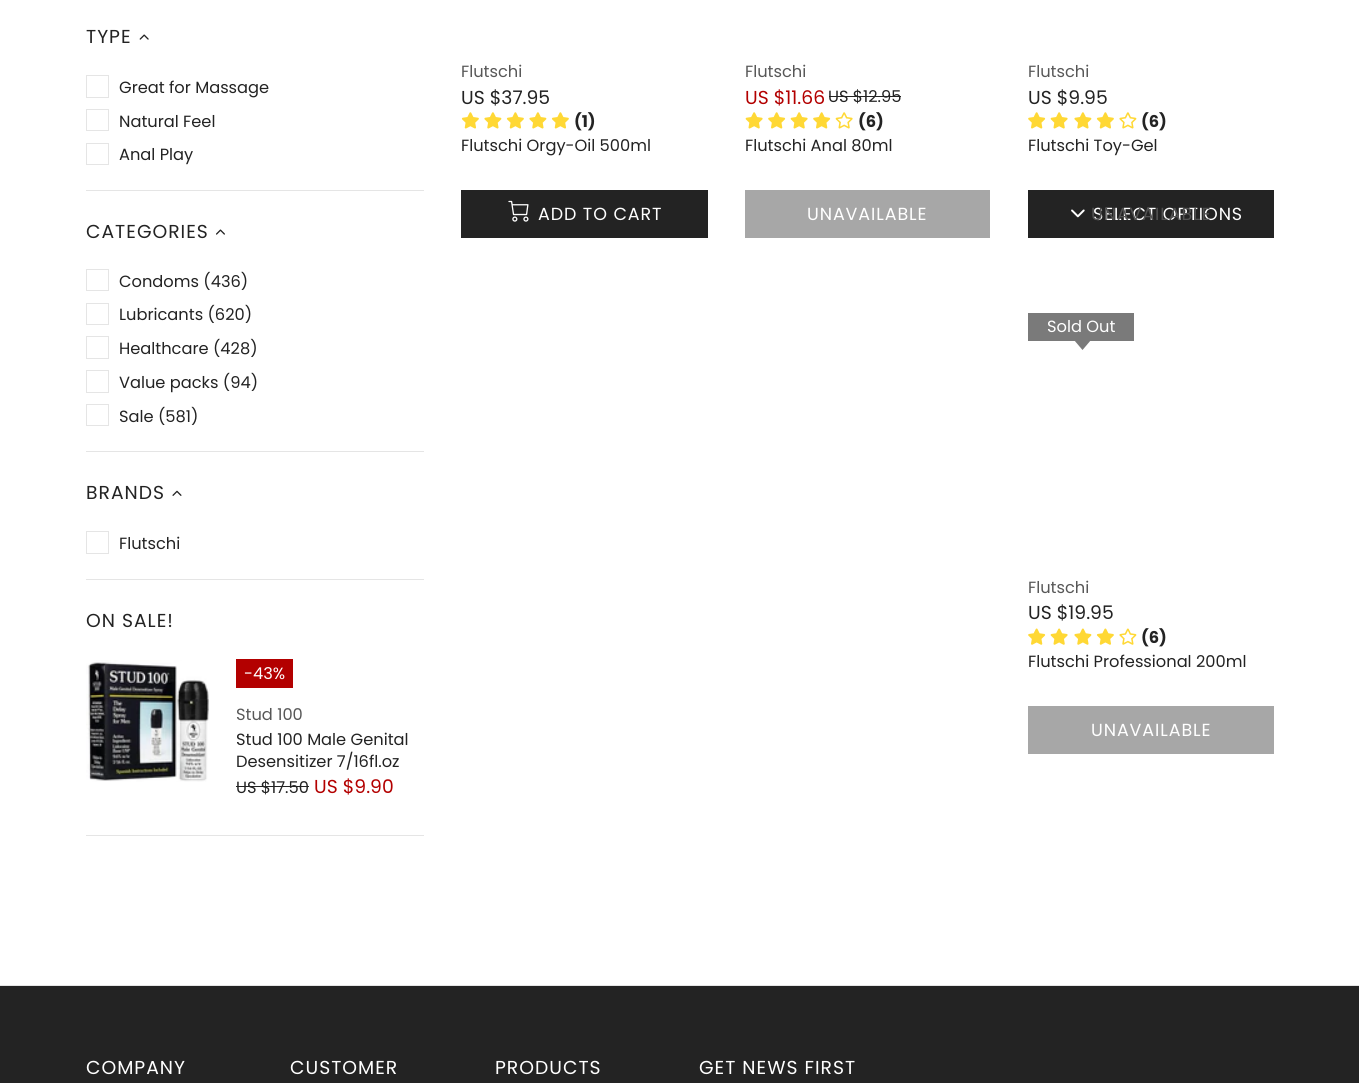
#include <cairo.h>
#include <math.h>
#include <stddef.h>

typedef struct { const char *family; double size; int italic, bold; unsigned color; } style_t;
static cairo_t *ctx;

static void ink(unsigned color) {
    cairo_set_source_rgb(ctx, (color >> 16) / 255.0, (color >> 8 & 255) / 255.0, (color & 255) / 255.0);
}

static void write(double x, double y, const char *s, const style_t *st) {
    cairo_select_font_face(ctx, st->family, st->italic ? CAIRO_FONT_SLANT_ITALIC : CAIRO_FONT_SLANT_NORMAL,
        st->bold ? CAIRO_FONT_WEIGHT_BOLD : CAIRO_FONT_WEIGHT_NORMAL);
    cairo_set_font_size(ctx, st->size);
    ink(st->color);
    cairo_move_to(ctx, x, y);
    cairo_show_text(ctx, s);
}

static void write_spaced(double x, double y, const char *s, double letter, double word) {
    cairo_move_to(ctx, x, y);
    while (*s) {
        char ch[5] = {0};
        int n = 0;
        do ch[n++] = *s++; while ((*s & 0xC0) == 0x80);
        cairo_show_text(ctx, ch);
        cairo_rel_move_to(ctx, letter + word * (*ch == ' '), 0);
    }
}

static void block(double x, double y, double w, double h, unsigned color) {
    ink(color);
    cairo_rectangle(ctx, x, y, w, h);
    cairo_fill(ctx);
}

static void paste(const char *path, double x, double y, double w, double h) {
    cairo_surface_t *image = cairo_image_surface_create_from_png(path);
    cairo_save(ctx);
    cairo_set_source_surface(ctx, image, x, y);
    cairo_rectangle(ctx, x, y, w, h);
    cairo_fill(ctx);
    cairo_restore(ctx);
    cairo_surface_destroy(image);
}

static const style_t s1 = {"Poppins", 16.25, 0, 0, 0x232323};
static const style_t s2 = {"Poppins", 16.25, 0, 0, 0xffffff};
static const style_t s3 = {"Poppins", 16.25, 0, 0, 0x575757};
static const style_t s4 = {"Poppins", 18.75, 0, 0, 0xb30000};
static const style_t s5 = {"Poppins", 18.75, 0, 0, 0x232323};
static const style_t s6 = {"Poppins", 16.25, 0, 1, 0x232323};

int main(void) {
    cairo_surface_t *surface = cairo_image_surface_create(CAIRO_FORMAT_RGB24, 1359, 1083);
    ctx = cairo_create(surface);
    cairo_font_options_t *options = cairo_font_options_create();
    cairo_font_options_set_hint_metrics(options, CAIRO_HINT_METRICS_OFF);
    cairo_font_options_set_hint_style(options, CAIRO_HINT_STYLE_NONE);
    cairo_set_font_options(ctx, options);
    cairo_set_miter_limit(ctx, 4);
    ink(0xffffff);
    cairo_paint(ctx);
    block(86, 190, 338, 1, 0xe5e5e5);
    cairo_select_font_face(ctx, "Poppins", CAIRO_FONT_SLANT_NORMAL, CAIRO_FONT_WEIGHT_NORMAL);
    cairo_set_font_size(ctx, 18.75);
    ink(0x232323);
    write_spaced(86, 43, "TYPE", 1, 0);
    paste("pic1.png", 139, 34, 10, 6);
    cairo_rectangle(ctx, 86.5, 75.5, 22, 22);
    ink(0xe5e5e5);
    cairo_set_line_width(ctx, 1);
    cairo_stroke(ctx);
    write(119, 93, "Great for Massage", &s1);
    cairo_rectangle(ctx, 86.5, 109.5, 22, 21);
    ink(0xe5e5e5);
    cairo_stroke(ctx);
    write(119, 127, "Natural Feel", &s1);
    cairo_rectangle(ctx, 86.5, 143.5, 22, 21);
    ink(0xe5e5e5);
    cairo_stroke(ctx);
    write(119, 160, "Anal Play", &s1);
    block(86, 451, 338, 1, 0xe5e5e5);
    cairo_set_font_size(ctx, 18.75);
    ink(0x232323);
    write_spaced(86, 238, "CATEGORIES", 1, 0);
    paste("pic2.png", 216, 229, 9, 6);
    cairo_rectangle(ctx, 86.5, 269.5, 22, 21);
    ink(0xe5e5e5);
    cairo_stroke(ctx);
    write(119, 287, "Condoms (436)", &s1);
    cairo_rectangle(ctx, 86.5, 303.5, 22, 21);
    ink(0xe5e5e5);
    cairo_stroke(ctx);
    write(119, 320, "Lubricants (620)", &s1);
    cairo_rectangle(ctx, 86.5, 336.5, 22, 22);
    ink(0xe5e5e5);
    cairo_stroke(ctx);
    write(119, 354, "Healthcare (428)", &s1);
    cairo_rectangle(ctx, 86.5, 370.5, 22, 22);
    ink(0xe5e5e5);
    cairo_stroke(ctx);
    write(119, 388, "Value packs (94)", &s1);
    cairo_rectangle(ctx, 86.5, 404.5, 22, 21);
    ink(0xe5e5e5);
    cairo_stroke(ctx);
    write(119, 422, "Sale (581)", &s1);
    block(86, 579, 338, 1, 0xe5e5e5);
    cairo_set_font_size(ctx, 18.75);
    ink(0x232323);
    write_spaced(86, 499, "BRANDS", 1, 0);
    paste("pic3.png", 172, 490, 10, 6);
    cairo_rectangle(ctx, 86.5, 531.5, 22, 22);
    ink(0xe5e5e5);
    cairo_stroke(ctx);
    write(119, 549, "Flutschi", &s1);
    block(86, 835, 338, 1, 0xe5e5e5);
    cairo_set_font_size(ctx, 18.75);
    ink(0x232323);
    write_spaced(86, 627, "ON SALE!", 1, 0);
    paste("pic4.png", 86, 660, 124, 122);
    block(236, 659, 57, 29, 0xb30000);
    write(244, 679, "-43%", &s2);
    write(236, 720, "Stud 100", &s3);
    write(236, 745, "Stud 100 Male Genital", &s1);
    write(236, 767, "Desensitizer 7/16fl.oz", &s1);
    write(236, 793, "US $17.50", &s1);
    block(236, 786, 73, 1, 0x232323);
    write(314, 793, "US $9.90", &s4);
    write(461, 77, "Flutschi", &s3);
    write(461, 104, "US $37.95", &s5);
    paste("pic5.png", 461, 112, 18, 17);
    paste("pic6.png", 484, 112, 18, 17);
    paste("pic5.png", 506, 112, 18, 17);
    paste("pic6.png", 529, 112, 18, 17);
    paste("pic5.png", 551, 112, 18, 17);
    write(574, 127, "(1)", &s6);
    write(461, 151, "Flutschi Orgy-Oil 500ml", &s1);
    block(461, 190, 247, 48, 0x232323);
    paste("pic7.png", 508, 200, 21, 22);
    cairo_set_font_size(ctx, 17.5);
    ink(0xffffff);
    write_spaced(538, 220, "ADD TO CART", 0.9, 0);
    write(745, 77, "Flutschi", &s3);
    write(745, 104, "US $11.66", &s4);
    write(828, 102, "US $12.95", &s1);
    block(829, 96, 72, 1, 0x232323);
    paste("pic8.png", 745, 112, 18, 17);
    paste("pic9.png", 768, 112, 18, 17);
    paste("pic8.png", 790, 112, 18, 17);
    paste("pic9.png", 813, 112, 18, 17);
    paste("pic10.png", 835, 112, 18, 17);
    write(858, 127, "(6)", &s6);
    write(745, 151, "Flutschi Anal 80ml", &s1);
    block(745, 190, 245, 48, 0xa7a7a7);
    cairo_set_font_size(ctx, 17.5);
    ink(0xffffff);
    write_spaced(807, 220, "UNAVAILABLE", 0.9, 0);
    write(1028, 77, "Flutschi", &s3);
    write(1028, 104, "US $9.95", &s5);
    paste("pic9.png", 1028, 112, 18, 17);
    paste("pic8.png", 1050, 112, 18, 17);
    paste("pic6.png", 1074, 112, 18, 17);
    paste("pic5.png", 1096, 112, 18, 17);
    paste("pic11.png", 1119, 112, 18, 17);
    write(1141, 127, "(6)", &s6);
    write(1028, 151, "Flutschi Toy-Gel", &s1);
    block(1028, 190, 246, 48, 0x232323);
    cairo_set_font_size(ctx, 17.5);
    ink(0xffffff);
    write_spaced(1093, 220, "SELECT OPTIONS", 0.9, 0);
    ink(0x515151);
    write_spaced(1091, 220, "UNAVAILABLE", 0.9, 0);
    paste("pic12.png", 1071, 209, 14, 9);
    block(1028, 313, 106, 28, 0x7a7a7a);
    write(1047, 332, "Sold Out", &s2);
    ink(0x7a7a7a);
    cairo_new_path(ctx);
    cairo_move_to(ctx, 1074, 340);
    cairo_line_to(ctx, 1091, 340);
    cairo_line_to(ctx, 1082.5, 350);
    cairo_close_path(ctx);
    cairo_fill(ctx);
    write(1028, 593, "Flutschi", &s3);
    write(1028, 619, "US $19.95", &s5);
    paste("pic13.png", 1028, 628, 18, 17);
    paste("pic14.png", 1050, 628, 18, 17);
    paste("pic15.png", 1074, 628, 18, 17);
    paste("pic16.png", 1096, 628, 18, 17);
    paste("pic17.png", 1119, 628, 18, 17);
    write(1141, 643, "(6)", &s6);
    write(1028, 667, "Flutschi Professional 200ml", &s1);
    block(1028, 706, 246, 48, 0xa7a7a7);
    cairo_set_font_size(ctx, 17.5);
    ink(0xffffff);
    write_spaced(1091, 736, "UNAVAILABLE", 0.9, 0);
    block(0, 986, 1359, 97, 0x232323);
    block(0, 985, 1359, 1, 0xe5e5e5);
    cairo_set_font_size(ctx, 18.75);
    ink(0xffffff);
    write_spaced(86, 1074, "COMPANY", 1, 0);
    write_spaced(290, 1074, "CUSTOMER", 1, 0);
    write_spaced(495, 1074, "PRODUCTS", 1, 0);
    write_spaced(699, 1074, "GET NEWS FIRST", 1, 0);
    cairo_surface_write_to_png(surface, "screenshot.png");
    cairo_font_options_destroy(options);
    cairo_destroy(ctx);
    cairo_surface_destroy(surface);
    return 0;
}
